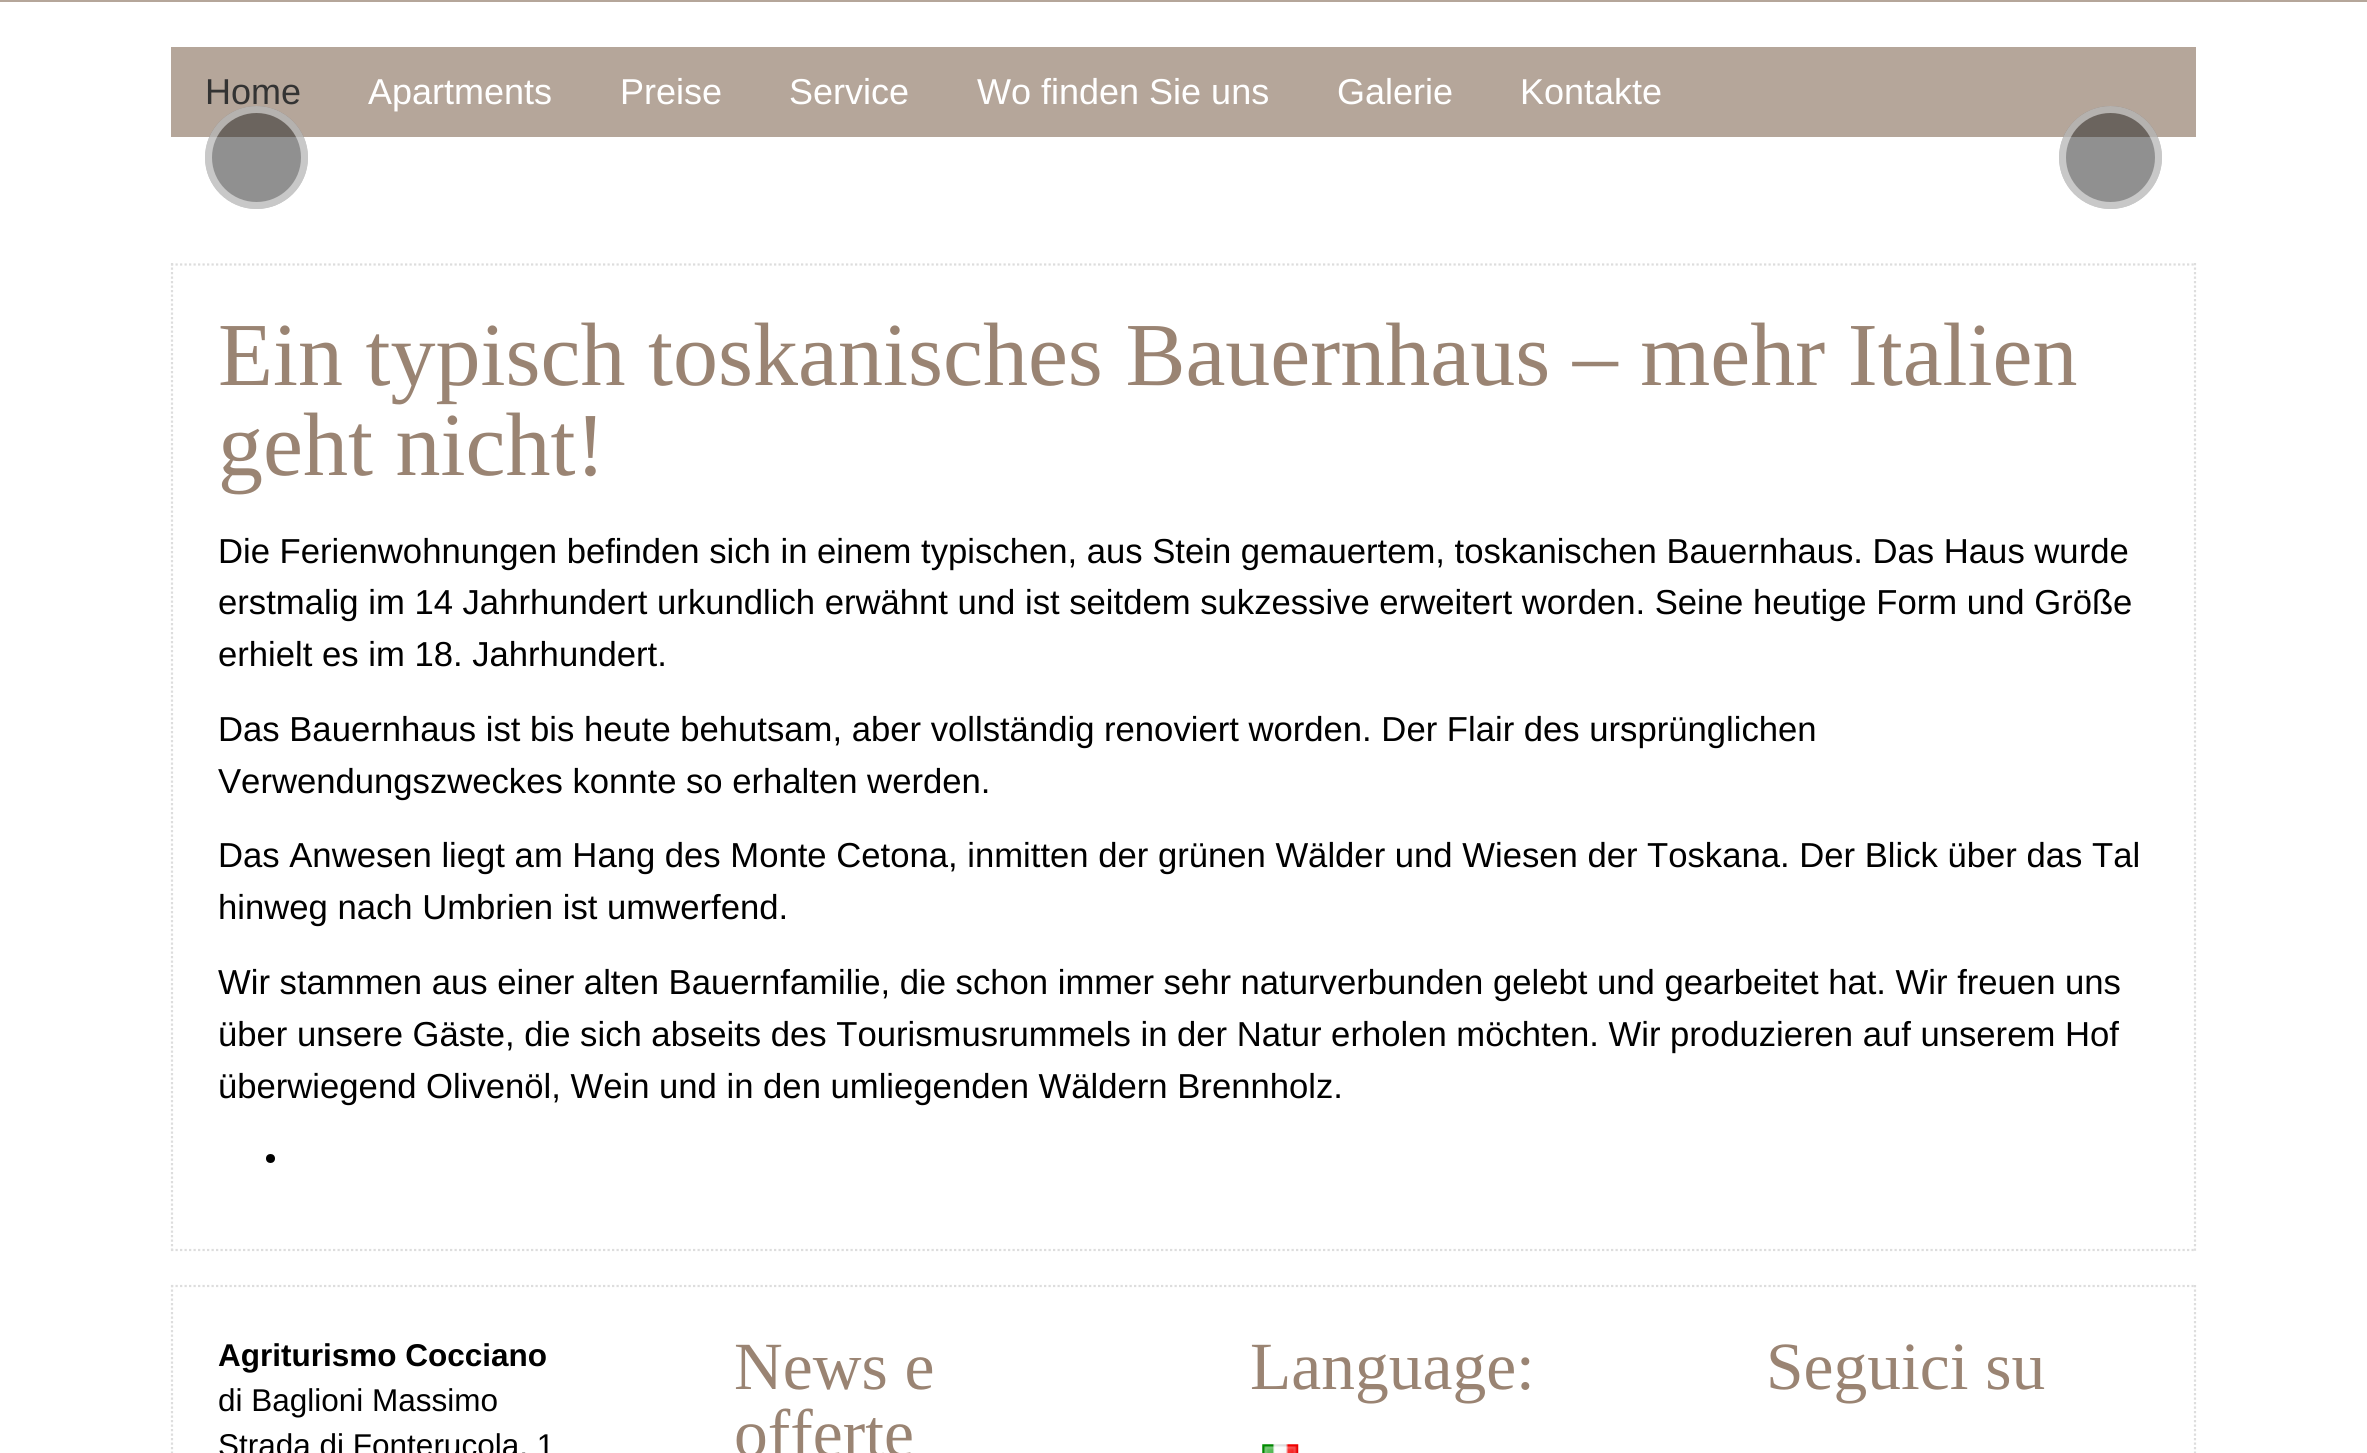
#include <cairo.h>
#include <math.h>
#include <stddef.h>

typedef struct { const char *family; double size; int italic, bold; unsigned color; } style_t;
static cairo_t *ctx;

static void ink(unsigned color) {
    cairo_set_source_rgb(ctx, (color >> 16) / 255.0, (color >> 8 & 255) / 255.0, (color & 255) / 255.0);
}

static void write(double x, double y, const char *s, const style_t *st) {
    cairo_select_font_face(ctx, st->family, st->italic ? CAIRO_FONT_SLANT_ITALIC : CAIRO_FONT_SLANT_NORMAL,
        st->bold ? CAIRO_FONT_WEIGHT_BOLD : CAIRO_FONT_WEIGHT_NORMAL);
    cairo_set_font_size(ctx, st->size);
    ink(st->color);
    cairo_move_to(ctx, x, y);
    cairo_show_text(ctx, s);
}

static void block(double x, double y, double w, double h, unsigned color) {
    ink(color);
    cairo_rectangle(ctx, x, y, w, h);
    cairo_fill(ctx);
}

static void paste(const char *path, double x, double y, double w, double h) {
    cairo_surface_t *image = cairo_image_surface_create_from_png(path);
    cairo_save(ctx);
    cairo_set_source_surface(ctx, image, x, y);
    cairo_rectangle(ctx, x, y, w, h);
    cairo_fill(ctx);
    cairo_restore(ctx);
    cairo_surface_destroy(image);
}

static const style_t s1 = {"Liberation Sans", 36, 0, 0, 0x333333};
static const style_t s2 = {"Liberation Sans", 36, 0, 0, 0xffffff};
static const style_t s3 = {"Liberation Serif", 90, 0, 0, 0x9a8473};
static const style_t s4 = {"Liberation Sans", 34.65, 0, 0, 0x000000};
static const style_t s5 = {"Liberation Sans", 31.5, 0, 1, 0x000000};
static const style_t s6 = {"Liberation Sans", 31.5, 0, 0, 0x000000};
static const style_t s7 = {"Liberation Serif", 67.5, 0, 0, 0x9a8473};

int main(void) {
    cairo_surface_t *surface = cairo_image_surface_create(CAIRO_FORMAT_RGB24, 2367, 1453);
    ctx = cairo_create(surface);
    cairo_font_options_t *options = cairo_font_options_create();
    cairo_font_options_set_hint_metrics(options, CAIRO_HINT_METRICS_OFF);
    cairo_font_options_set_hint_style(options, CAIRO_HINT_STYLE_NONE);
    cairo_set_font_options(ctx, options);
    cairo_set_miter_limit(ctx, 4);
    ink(0xffffff);
    cairo_paint(ctx);
    block(0, 0, 2367, 2, 0xb5a69a);
    block(171, 47, 2025, 90, 0xb5a69a);
    write(205, 104, "Home", &s1);
    write(368, 104, "Apartments", &s2);
    write(620, 104, "Preise", &s2);
    write(789, 104, "Service", &s2);
    write(977, 104, "Wo finden Sie uns", &s2);
    write(1337, 104, "Galerie", &s2);
    write(1520, 104, "Kontakte", &s2);
    cairo_set_source_rgba(ctx, 0.133, 0.133, 0.133, 0.5);
    cairo_new_path(ctx);
    cairo_arc(ctx, 256.5, 157.5, 51.5, 0, 2 * M_PI);
    cairo_fill(ctx);
    cairo_arc(ctx, 256.5, 157.5, 48, 0, 2 * M_PI);
    cairo_set_source_rgba(ctx, 1, 1, 1, 0.5);
    cairo_set_line_width(ctx, 7);
    cairo_stroke(ctx);
    cairo_set_source_rgba(ctx, 0.133, 0.133, 0.133, 0.5);
    cairo_arc(ctx, 2110.5, 157.5, 51.5, 0, 2 * M_PI);
    cairo_fill(ctx);
    cairo_arc(ctx, 2110.5, 157.5, 48, 0, 2 * M_PI);
    cairo_set_source_rgba(ctx, 1, 1, 1, 0.5);
    cairo_stroke(ctx);
    cairo_new_path(ctx);
    cairo_move_to(ctx, 171, 264.5);
    cairo_line_to(ctx, 2196, 264.5);
    ink(0xdddddd);
    cairo_set_line_width(ctx, 2.2);
    cairo_set_dash(ctx, (double[]){2.25, 2.25}, 2, 0);
    cairo_stroke(ctx);
    cairo_new_path(ctx);
    cairo_move_to(ctx, 2195, 263);
    cairo_line_to(ctx, 2195, 1251);
    cairo_stroke(ctx);
    cairo_new_path(ctx);
    cairo_move_to(ctx, 171, 1250);
    cairo_line_to(ctx, 2196, 1250);
    cairo_stroke(ctx);
    cairo_new_path(ctx);
    cairo_move_to(ctx, 172, 263);
    cairo_line_to(ctx, 172, 1251);
    cairo_stroke(ctx);
    write(218, 385, "Ein typisch toskanisches Bauernhaus – mehr Italien", &s3);
    write(218, 475, "geht nicht!", &s3);
    write(218, 563, "Die Ferienwohnungen befinden sich in einem typischen, aus Stein gemauertem, toskanischen Bauernhaus. Das Haus wurde", &s4);
    write(218, 614, "erstmalig im 14 Jahrhundert urkundlich erwähnt und ist seitdem sukzessive erweitert worden. Seine heutige Form und Größe", &s4);
    write(218, 666, "erhielt es im 18. Jahrhundert.", &s4);
    write(218, 741, "Das Bauernhaus ist bis heute behutsam, aber vollständig renoviert worden. Der Flair des ursprünglichen", &s4);
    write(218, 793, "Verwendungszweckes konnte so erhalten werden.", &s4);
    write(218, 867, "Das Anwesen liegt am Hang des Monte Cetona, inmitten der grünen Wälder und Wiesen der Toskana. Der Blick über das Tal", &s4);
    write(218, 919, "hinweg nach Umbrien ist umwerfend.", &s4);
    write(218, 994, "Wir stammen aus einer alten Bauernfamilie, die schon immer sehr naturverbunden gelebt und gearbeitet hat. Wir freuen uns", &s4);
    write(218, 1046, "über unsere Gäste, die sich abseits des Tourismusrummels in der Natur erholen möchten. Wir produzieren auf unserem Hof", &s4);
    write(218, 1098, "überwiegend Olivenöl, Wein und in den umliegenden Wäldern Brennholz.", &s4);
    cairo_new_path(ctx);
    cairo_arc(ctx, 270.5, 1158.5, 4.5, 0, 2 * M_PI);
    cairo_fill(ctx);
    cairo_new_path(ctx);
    cairo_move_to(ctx, 171, 1286);
    cairo_line_to(ctx, 2196, 1286);
    ink(0xdddddd);
    cairo_stroke(ctx);
    cairo_new_path(ctx);
    cairo_move_to(ctx, 2195, 1285);
    cairo_line_to(ctx, 2195, 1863);
    cairo_stroke(ctx);
    cairo_new_path(ctx);
    cairo_move_to(ctx, 172, 1285);
    cairo_line_to(ctx, 172, 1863);
    cairo_stroke(ctx);
    write(218, 1366, "Agriturismo Cocciano", &s5);
    write(218, 1411, "di Baglioni Massimo", &s6);
    write(218, 1456, "Strada di Fonterucola, 1", &s6);
    write(734, 1389, "News e", &s7);
    write(734, 1456, "offerte", &s7);
    write(1250, 1389, "Language:", &s7);
    paste("pic1.png", 1262, 1444, 37, 9);
    write(1766, 1389, "Seguici su", &s7);
    cairo_surface_write_to_png(surface, "screenshot.png");
    cairo_font_options_destroy(options);
    cairo_destroy(ctx);
    cairo_surface_destroy(surface);
    return 0;
}
